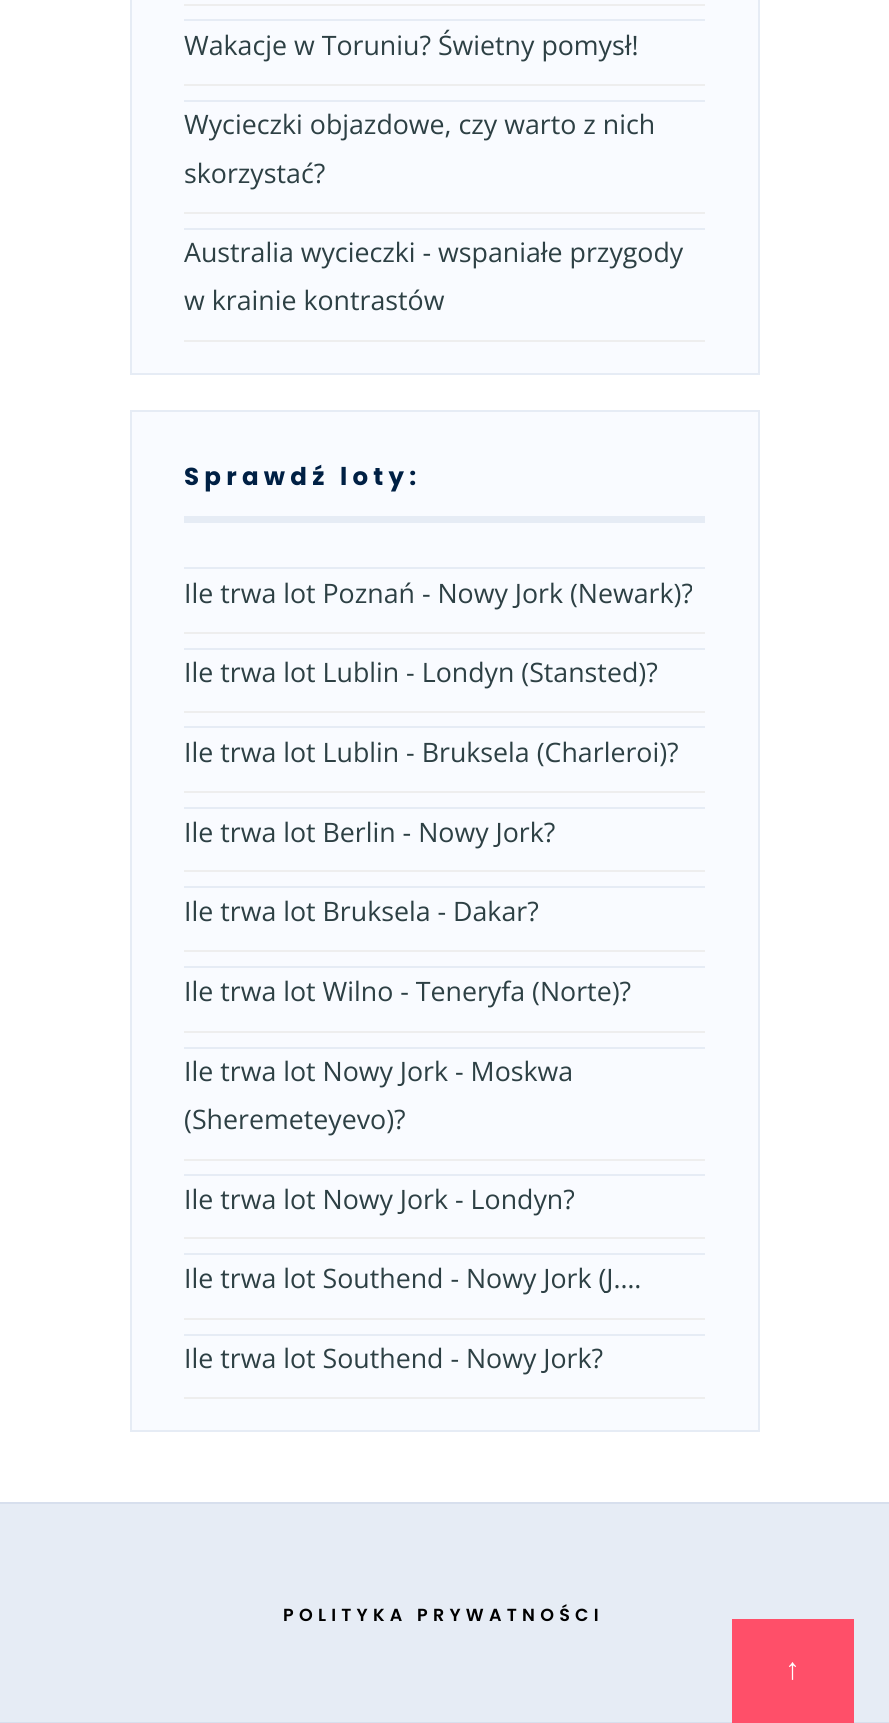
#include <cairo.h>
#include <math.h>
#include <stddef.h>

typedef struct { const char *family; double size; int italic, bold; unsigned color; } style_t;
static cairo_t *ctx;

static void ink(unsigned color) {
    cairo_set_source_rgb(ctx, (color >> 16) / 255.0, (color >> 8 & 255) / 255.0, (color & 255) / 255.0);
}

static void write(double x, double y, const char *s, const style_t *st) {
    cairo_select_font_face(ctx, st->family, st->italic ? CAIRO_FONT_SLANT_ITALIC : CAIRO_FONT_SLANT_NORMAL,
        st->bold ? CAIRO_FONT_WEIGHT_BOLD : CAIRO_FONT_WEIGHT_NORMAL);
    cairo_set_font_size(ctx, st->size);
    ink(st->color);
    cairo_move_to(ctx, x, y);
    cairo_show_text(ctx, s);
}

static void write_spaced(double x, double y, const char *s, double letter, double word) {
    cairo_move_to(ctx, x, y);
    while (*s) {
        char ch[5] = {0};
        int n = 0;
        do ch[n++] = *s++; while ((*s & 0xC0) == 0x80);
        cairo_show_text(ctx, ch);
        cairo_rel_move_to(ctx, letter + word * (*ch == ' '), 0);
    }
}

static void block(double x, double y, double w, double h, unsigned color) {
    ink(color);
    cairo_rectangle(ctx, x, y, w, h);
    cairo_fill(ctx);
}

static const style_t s1 = {"Open Sans", 26.75, 0, 0, 0x2d4044};
static const style_t s2 = {"Liberation Serif", 30, 0, 0, 0xffffff};

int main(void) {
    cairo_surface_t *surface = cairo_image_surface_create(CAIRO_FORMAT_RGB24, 889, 1723);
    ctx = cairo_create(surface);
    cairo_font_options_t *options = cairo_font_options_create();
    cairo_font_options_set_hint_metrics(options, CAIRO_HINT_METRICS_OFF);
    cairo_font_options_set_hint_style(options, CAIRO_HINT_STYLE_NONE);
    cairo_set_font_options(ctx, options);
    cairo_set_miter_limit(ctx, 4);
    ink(0xffffff);
    cairo_paint(ctx);
    ink(0xf9fbff);
    cairo_rectangle(ctx, 131, -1, 628, 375);
    cairo_fill_preserve(ctx);
    ink(0xe6ecf5);
    cairo_stroke(ctx);
    block(184, 4, 521, 2, 0xeeeeee);
    block(184, 19, 521, 2, 0xe6ecf5);
    block(184, 84, 521, 2, 0xeeeeee);
    write(184, 55, "Wakacje w Toruniu? Świetny pomysł!", &s1);
    block(184, 100, 521, 2, 0xe6ecf5);
    block(184, 212, 521, 2, 0xeeeeee);
    write(184, 134, "Wycieczki objazdowe, czy warto z nich", &s1);
    write(184, 183, "skorzystać?", &s1);
    block(184, 228, 521, 2, 0xe6ecf5);
    block(184, 340, 521, 2, 0xeeeeee);
    write(184, 262, "Australia wycieczki - wspaniałe przygody", &s1);
    write(184, 310, "w krainie kontrastów", &s1);
    ink(0xf9fbff);
    cairo_rectangle(ctx, 131, 411, 628, 1020);
    cairo_fill_preserve(ctx);
    ink(0xe6ecf5);
    cairo_stroke(ctx);
    block(184, 516, 521, 7, 0xe6ecf5);
    cairo_select_font_face(ctx, "Poppins", CAIRO_FONT_SLANT_NORMAL, CAIRO_FONT_WEIGHT_BOLD);
    cairo_set_font_size(ctx, 24.5);
    ink(0x002044);
    write_spaced(184, 485, "Sprawdź loty:", 5.25, 0);
    block(184, 567, 521, 2, 0xe6ecf5);
    block(184, 632, 521, 2, 0xeeeeee);
    write(184, 603, "Ile trwa lot Poznań - Nowy Jork (Newark)?", &s1);
    block(184, 648, 521, 2, 0xe6ecf5);
    block(184, 711, 521, 2, 0xeeeeee);
    write(184, 682, "Ile trwa lot Lublin - Londyn (Stansted)?", &s1);
    block(184, 726, 521, 2, 0xe6ecf5);
    block(184, 791, 521, 2, 0xeeeeee);
    write(184, 762, "Ile trwa lot Lublin - Bruksela (Charleroi)?", &s1);
    block(184, 807, 521, 2, 0xe6ecf5);
    block(184, 870, 521, 2, 0xeeeeee);
    write(184, 842, "Ile trwa lot Berlin - Nowy Jork?", &s1);
    block(184, 886, 521, 2, 0xe6ecf5);
    block(184, 950, 521, 2, 0xeeeeee);
    write(184, 921, "Ile trwa lot Bruksela - Dakar?", &s1);
    block(184, 966, 521, 2, 0xe6ecf5);
    block(184, 1031, 521, 2, 0xeeeeee);
    write(184, 1001, "Ile trwa lot Wilno - Teneryfa (Norte)?", &s1);
    block(184, 1047, 521, 2, 0xe6ecf5);
    block(184, 1159, 521, 2, 0xeeeeee);
    write(184, 1081, "Ile trwa lot Nowy Jork - Moskwa", &s1);
    write(184, 1129, "(Sheremeteyevo)?", &s1);
    block(184, 1174, 521, 2, 0xe6ecf5);
    block(184, 1237, 521, 2, 0xeeeeee);
    write(184, 1209, "Ile trwa lot Nowy Jork - Londyn?", &s1);
    block(184, 1253, 521, 2, 0xe6ecf5);
    block(184, 1318, 521, 2, 0xeeeeee);
    write(184, 1288, "Ile trwa lot Southend - Nowy Jork (J.…", &s1);
    block(184, 1334, 521, 2, 0xe6ecf5);
    block(184, 1397, 521, 2, 0xeeeeee);
    write(184, 1368, "Ile trwa lot Southend - Nowy Jork?", &s1);
    block(0, 1504, 889, 218, 0xe6ecf5);
    block(0, 1502, 889, 2, 0xd7dfed);
    block(0, 1722, 889, 1, 0xd7dfed);
    cairo_select_font_face(ctx, "Poppins SemiBold", CAIRO_FONT_SLANT_NORMAL, CAIRO_FONT_WEIGHT_NORMAL);
    cairo_set_font_size(ctx, 17.5);
    ink(0x000000);
    write_spaced(283, 1621, "POLITYKA PRYWATNOŚCI", 5.25, 0);
    block(732, 1619, 122, 104, 0xff4f69);
    write(785, 1679, "↑", &s2);
    cairo_surface_write_to_png(surface, "screenshot.png");
    cairo_font_options_destroy(options);
    cairo_destroy(ctx);
    cairo_surface_destroy(surface);
    return 0;
}
